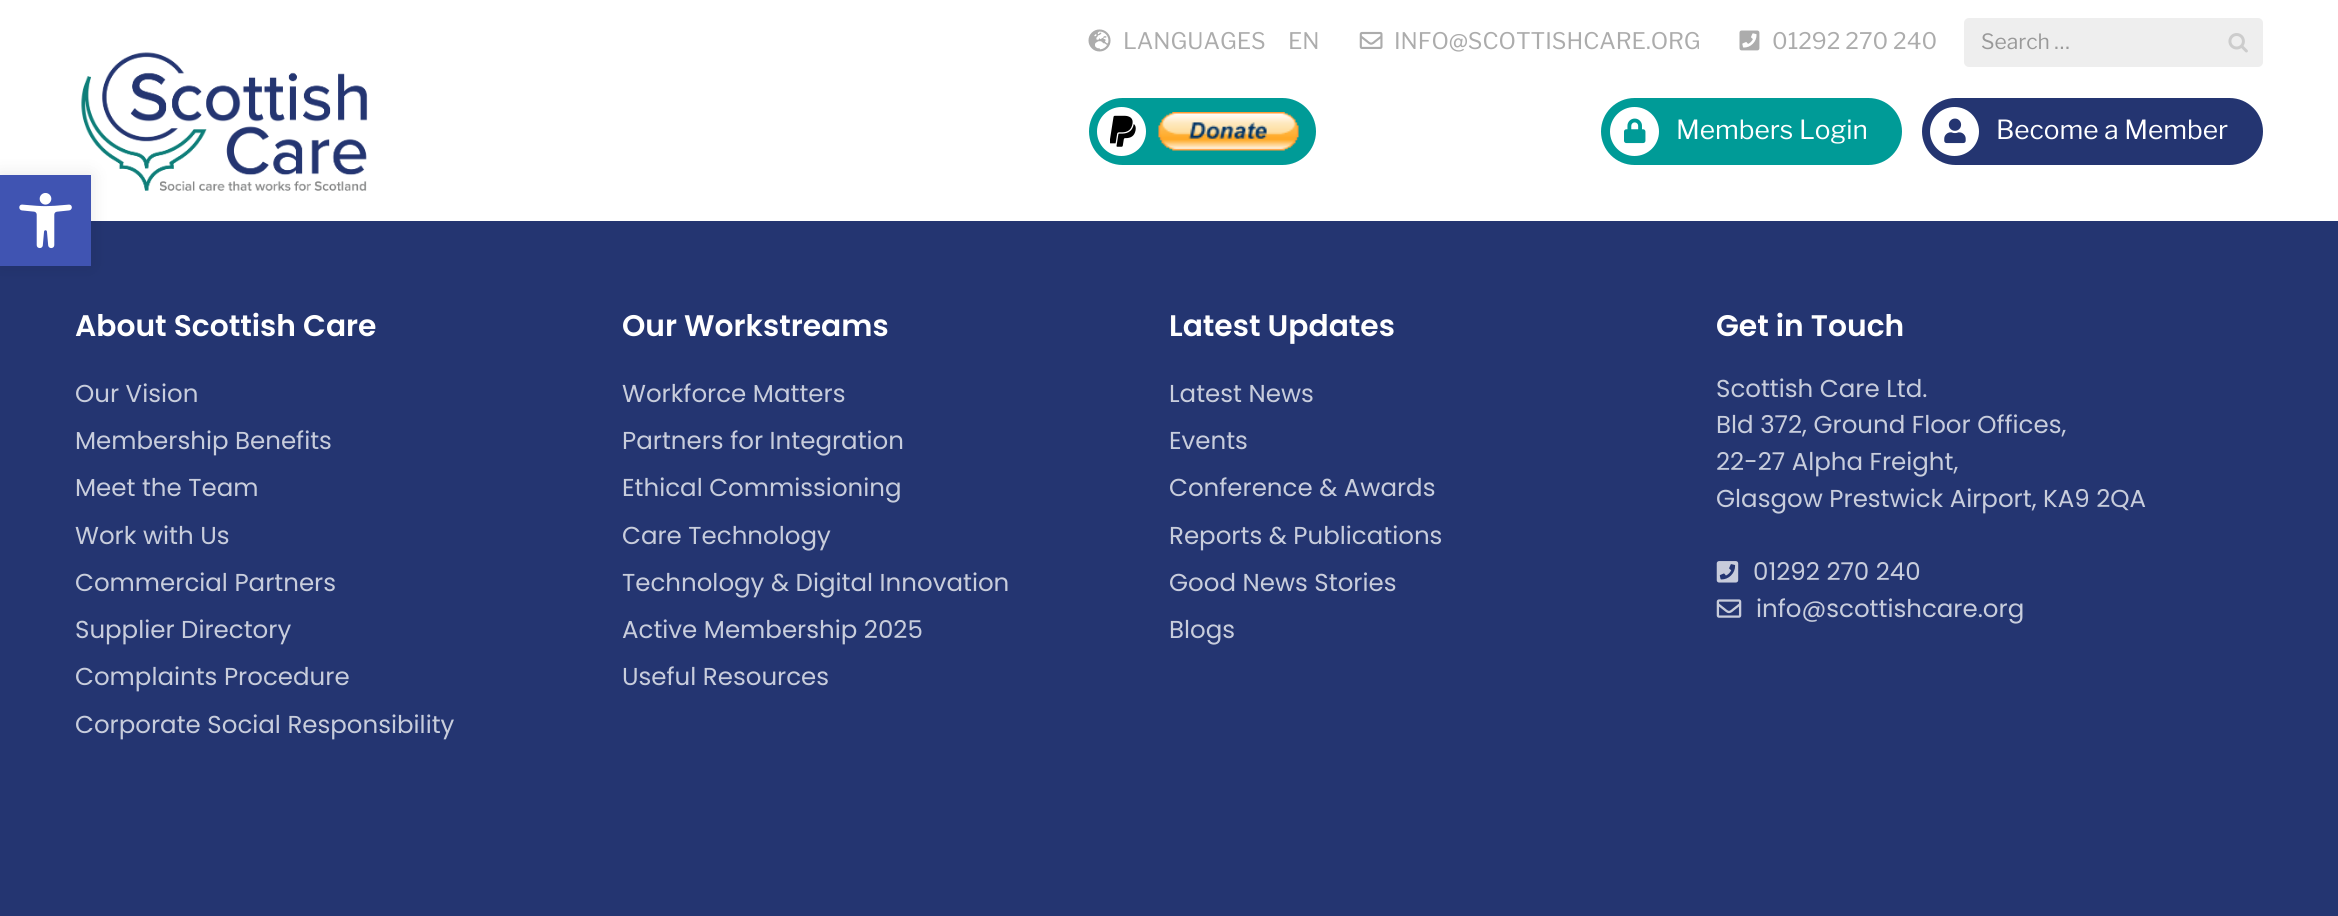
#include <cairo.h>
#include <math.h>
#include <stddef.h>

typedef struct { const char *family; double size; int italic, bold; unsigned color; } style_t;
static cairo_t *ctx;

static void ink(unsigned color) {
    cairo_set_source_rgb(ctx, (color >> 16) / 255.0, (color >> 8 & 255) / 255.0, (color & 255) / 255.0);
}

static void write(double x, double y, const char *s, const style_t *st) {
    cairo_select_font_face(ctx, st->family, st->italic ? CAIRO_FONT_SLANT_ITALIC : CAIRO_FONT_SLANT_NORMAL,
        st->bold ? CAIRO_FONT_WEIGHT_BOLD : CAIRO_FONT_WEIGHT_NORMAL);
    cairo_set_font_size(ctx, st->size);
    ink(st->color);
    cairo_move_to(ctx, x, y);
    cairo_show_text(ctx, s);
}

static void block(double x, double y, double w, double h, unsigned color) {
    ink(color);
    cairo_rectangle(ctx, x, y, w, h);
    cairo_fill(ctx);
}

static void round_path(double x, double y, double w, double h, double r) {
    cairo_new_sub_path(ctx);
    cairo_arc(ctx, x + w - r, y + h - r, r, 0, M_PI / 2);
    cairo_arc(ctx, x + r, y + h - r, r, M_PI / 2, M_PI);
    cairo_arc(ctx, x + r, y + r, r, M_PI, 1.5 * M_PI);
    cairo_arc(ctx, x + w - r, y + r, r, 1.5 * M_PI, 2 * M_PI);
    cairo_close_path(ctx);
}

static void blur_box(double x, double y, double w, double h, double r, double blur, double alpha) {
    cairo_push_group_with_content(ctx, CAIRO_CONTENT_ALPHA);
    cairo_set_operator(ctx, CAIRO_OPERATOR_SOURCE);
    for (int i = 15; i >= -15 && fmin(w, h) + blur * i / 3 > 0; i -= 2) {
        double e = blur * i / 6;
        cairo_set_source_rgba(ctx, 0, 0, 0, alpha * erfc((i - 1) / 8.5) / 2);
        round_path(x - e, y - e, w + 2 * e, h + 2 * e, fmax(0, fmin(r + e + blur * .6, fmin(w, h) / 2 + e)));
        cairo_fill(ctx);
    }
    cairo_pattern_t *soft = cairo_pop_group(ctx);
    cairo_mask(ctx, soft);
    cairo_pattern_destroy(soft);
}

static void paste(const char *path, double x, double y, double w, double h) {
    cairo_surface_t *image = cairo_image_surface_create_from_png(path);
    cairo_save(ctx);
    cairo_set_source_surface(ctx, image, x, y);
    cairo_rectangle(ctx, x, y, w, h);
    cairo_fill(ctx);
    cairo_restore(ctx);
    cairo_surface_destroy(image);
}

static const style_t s1 = {"Libre Franklin", 22.75, 0, 0, 0xacacac};
static const style_t s2 = {"Libre Franklin", 21, 0, 0, 0x999999};
static const style_t s3 = {"Libre Franklin", 26.25, 0, 0, 0xffffff};
static const style_t s4 = {"Poppins SemiBold", 29.75, 0, 0, 0xffffff};
static const style_t s5 = {"Poppins", 24.5, 0, 0, 0xc8cddc};

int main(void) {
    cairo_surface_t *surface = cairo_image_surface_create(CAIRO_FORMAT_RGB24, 2338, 916);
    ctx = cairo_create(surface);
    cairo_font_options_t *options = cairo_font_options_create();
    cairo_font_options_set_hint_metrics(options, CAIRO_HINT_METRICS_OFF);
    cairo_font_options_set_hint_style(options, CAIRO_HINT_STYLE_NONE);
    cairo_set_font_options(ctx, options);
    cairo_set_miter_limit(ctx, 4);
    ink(0xffffff);
    cairo_paint(ctx);
    paste("pic2.png", 81, 52, 287, 139);
    block(0, 221, 2338, 695, 0x243571);
    ink(0x000000);
    blur_box(0, 175, 91, 91, 0, 9, 0.1);
    block(0, 175, 91, 91, 0x4054b2);
    paste("pic1.png", 19, 193, 53, 56);
    paste("pic3.png", 1088, 29, 23, 23);
    write(1123, 49, "LANGUAGES", &s1);
    write(1288, 49, "EN", &s1);
    paste("pic4.png", 1359, 31, 24, 18);
    write(1394, 49, "INFO@SCOTTISHCARE.ORG", &s1);
    paste("pic5.png", 1739, 30, 21, 21);
    write(1772, 49, "01292 270 240", &s1);
    ink(0xeeeeee);
    round_path(1964, 18, 299, 49, 5);
    cairo_fill(ctx);
    write(1981, 49, "Search …", &s2);
    paste("pic6.png", 2228, 33, 20, 20);
    ink(0x009b97);
    round_path(1089, 98, 227, 67, 33.5);
    cairo_fill(ctx);
    ink(0xffffff);
    cairo_arc(ctx, 1121.5, 131.5, 24.5, 0, 2 * M_PI);
    cairo_fill(ctx);
    paste("pic7.png", 1110, 115, 26, 32);
    paste("pic8.png", 1158, 112, 141, 39);
    ink(0x009b97);
    round_path(1601, 98, 301, 67, 33.5);
    cairo_fill(ctx);
    ink(0xffffff);
    cairo_arc(ctx, 1634.5, 131.5, 24.5, 0, 2 * M_PI);
    cairo_fill(ctx);
    paste("pic9.png", 1624, 118, 22, 26);
    write(1676, 139, "Members Login", &s3);
    ink(0x243571);
    round_path(1922, 98, 341, 67, 33.5);
    cairo_fill(ctx);
    ink(0xffffff);
    cairo_arc(ctx, 1954.5, 131.5, 24.5, 0, 2 * M_PI);
    cairo_fill(ctx);
    paste("pic10.png", 1944, 118, 22, 26);
    write(1996, 139, "Become a Member", &s3);
    write(75, 336, "About Scottish Care", &s4);
    write(75, 402, "Our Vision", &s5);
    write(75, 449, "Membership Benefits", &s5);
    write(75, 496, "Meet the Team", &s5);
    write(75, 544, "Work with Us", &s5);
    write(75, 591, "Commercial Partners", &s5);
    write(75, 638, "Supplier Directory", &s5);
    write(75, 685, "Complaints Procedure", &s5);
    write(75, 733, "Corporate Social Responsibility", &s5);
    write(622, 336, "Our Workstreams", &s4);
    write(622, 402, "Workforce Matters", &s5);
    write(622, 449, "Partners for Integration", &s5);
    write(622, 496, "Ethical Commissioning", &s5);
    write(622, 544, "Care Technology", &s5);
    write(622, 591, "Technology & Digital Innovation", &s5);
    write(622, 638, "Active Membership 2025", &s5);
    write(622, 685, "Useful Resources", &s5);
    write(1169, 336, "Latest Updates", &s4);
    write(1169, 402, "Latest News", &s5);
    write(1169, 449, "Events", &s5);
    write(1169, 496, "Conference & Awards", &s5);
    write(1169, 544, "Reports & Publications", &s5);
    write(1169, 591, "Good News Stories", &s5);
    write(1169, 638, "Blogs", &s5);
    write(1716, 336, "Get in Touch", &s4);
    write(1716, 397, "Scottish Care Ltd.", &s5);
    write(1716, 433, "Bld 372, Ground Floor Offices,", &s5);
    write(1716, 470, "22-27 Alpha Freight,", &s5);
    write(1716, 507, "Glasgow Prestwick Airport, KA9 2QA", &s5);
    paste("pic11.png", 1716, 561, 23, 22);
    write(1753, 580, "01292 270 240", &s5);
    paste("pic12.png", 1716, 599, 26, 19);
    write(1756, 617, "info@scottishcare.org", &s5);
    cairo_surface_write_to_png(surface, "screenshot.png");
    cairo_font_options_destroy(options);
    cairo_destroy(ctx);
    cairo_surface_destroy(surface);
    return 0;
}
